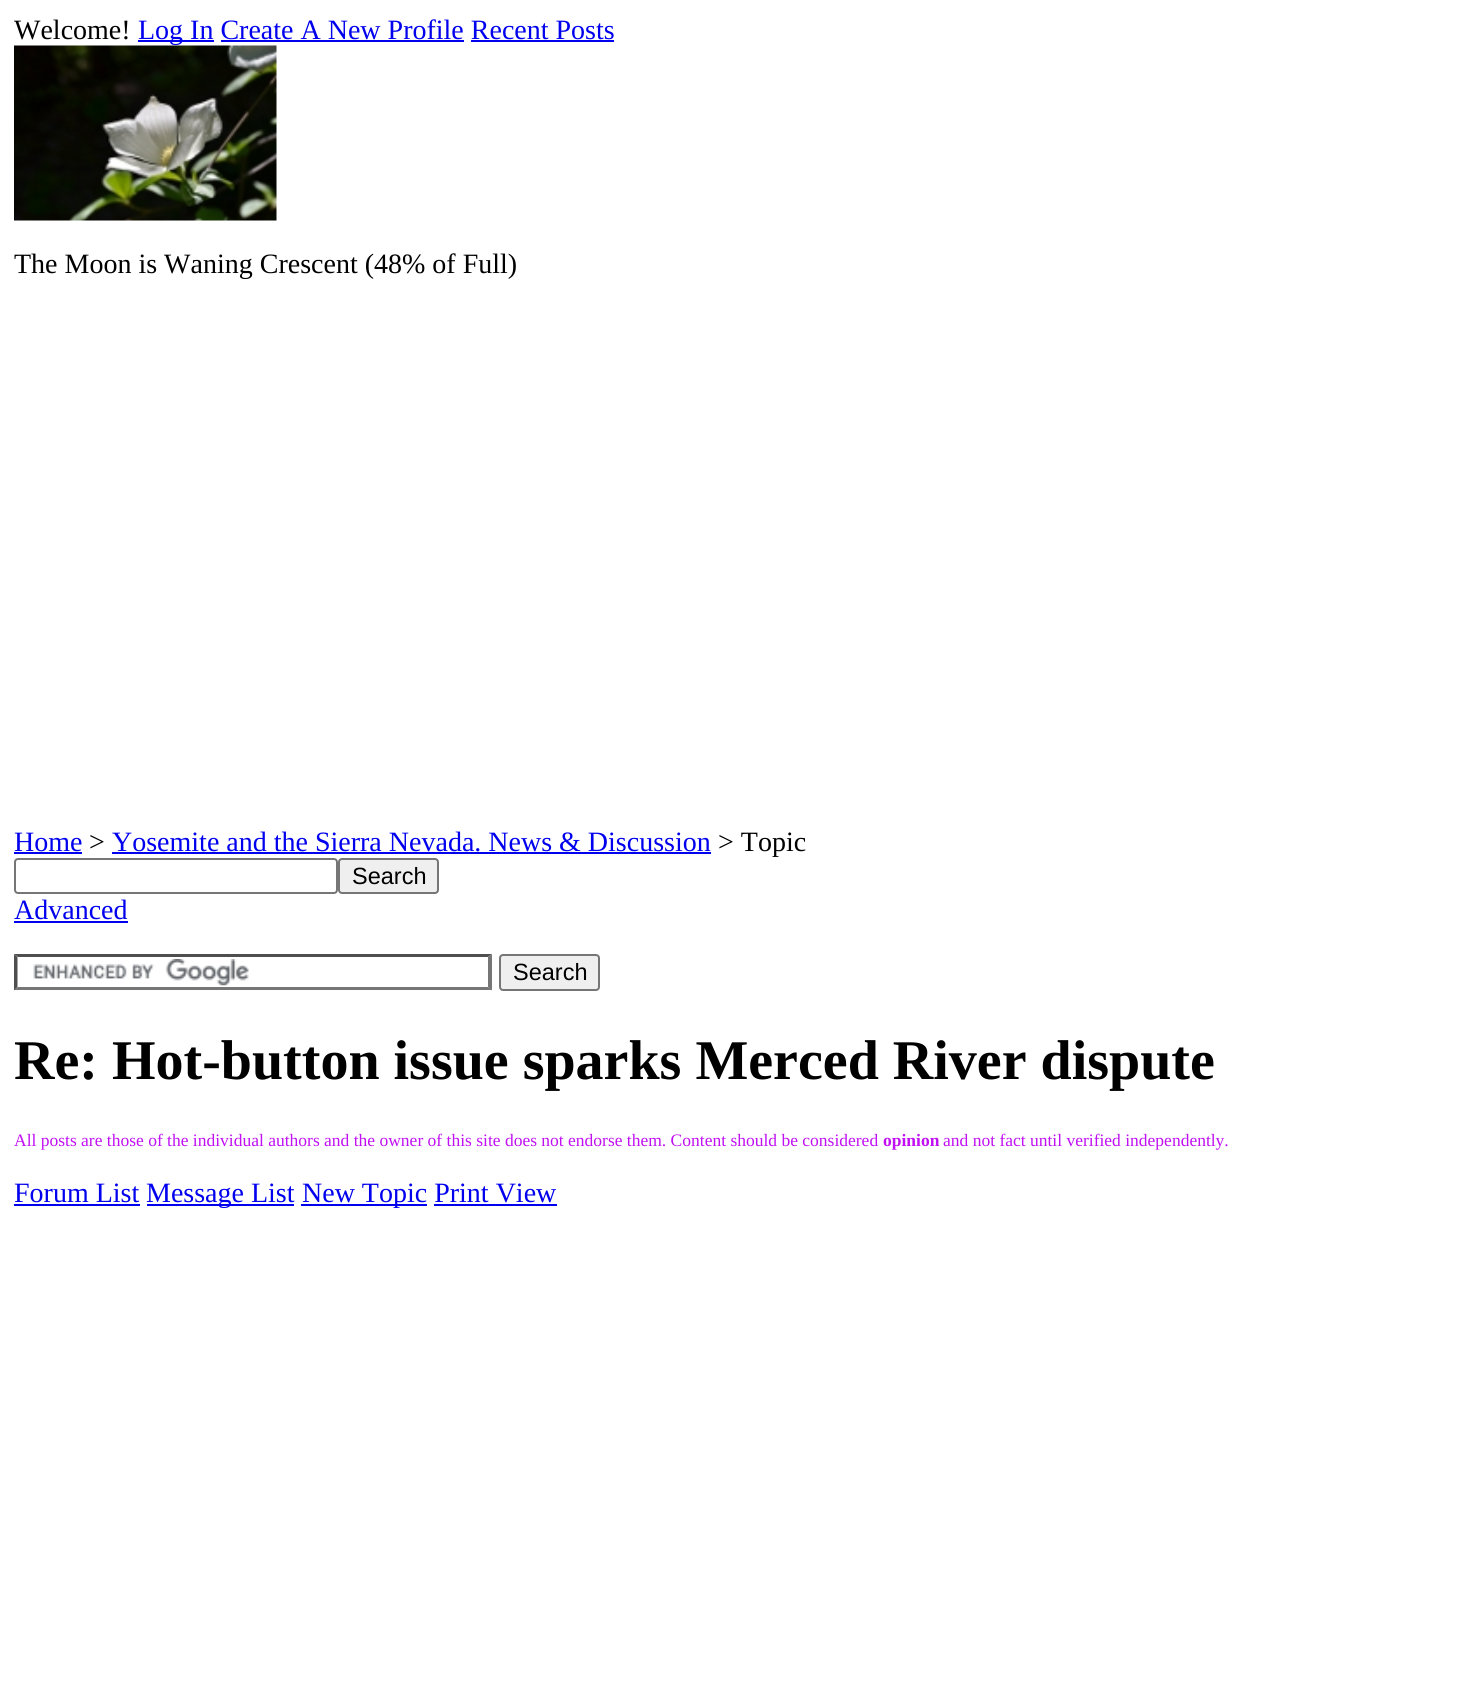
#include <cairo.h>
#include <math.h>
#include <stddef.h>

typedef struct { const char *family; double size; int italic, bold; unsigned color; } style_t;
static cairo_t *ctx;

static void ink(unsigned color) {
    cairo_set_source_rgb(ctx, (color >> 16) / 255.0, (color >> 8 & 255) / 255.0, (color & 255) / 255.0);
}

static void write(double x, double y, const char *s, const style_t *st) {
    cairo_select_font_face(ctx, st->family, st->italic ? CAIRO_FONT_SLANT_ITALIC : CAIRO_FONT_SLANT_NORMAL,
        st->bold ? CAIRO_FONT_WEIGHT_BOLD : CAIRO_FONT_WEIGHT_NORMAL);
    cairo_set_font_size(ctx, st->size);
    ink(st->color);
    cairo_move_to(ctx, x, y);
    cairo_show_text(ctx, s);
}

static void block(double x, double y, double w, double h, unsigned color) {
    ink(color);
    cairo_rectangle(ctx, x, y, w, h);
    cairo_fill(ctx);
}

static void round_path(double x, double y, double w, double h, double r) {
    cairo_new_sub_path(ctx);
    cairo_arc(ctx, x + w - r, y + h - r, r, 0, M_PI / 2);
    cairo_arc(ctx, x + r, y + h - r, r, M_PI / 2, M_PI);
    cairo_arc(ctx, x + r, y + r, r, M_PI, 1.5 * M_PI);
    cairo_arc(ctx, x + w - r, y + r, r, 1.5 * M_PI, 2 * M_PI);
    cairo_close_path(ctx);
}

static void paste(const char *path, double x, double y, double w, double h) {
    cairo_surface_t *image = cairo_image_surface_create_from_png(path);
    cairo_save(ctx);
    cairo_set_source_surface(ctx, image, x, y);
    cairo_rectangle(ctx, x, y, w, h);
    cairo_fill(ctx);
    cairo_restore(ctx);
    cairo_surface_destroy(image);
}

static const style_t s1 = {"Liberation Serif", 28, 0, 0, 0x000000};
static const style_t s2 = {"Liberation Serif", 28, 0, 0, 0x0000ee};
static const style_t s3 = {"Liberation Sans", 23.5, 0, 0, 0x000000};
static const style_t s4 = {"Liberation Serif", 56, 0, 1, 0x000000};
static const style_t s5 = {"Liberation Serif", 17.5, 0, 0, 0xc110f3};
static const style_t s6 = {"Liberation Serif", 17.5, 0, 1, 0xc110f3};

int main(void) {
    cairo_surface_t *surface = cairo_image_surface_create(CAIRO_FORMAT_RGB24, 1472, 1696);
    ctx = cairo_create(surface);
    cairo_font_options_t *options = cairo_font_options_create();
    cairo_font_options_set_hint_metrics(options, CAIRO_HINT_METRICS_OFF);
    cairo_font_options_set_hint_style(options, CAIRO_HINT_STYLE_NONE);
    cairo_set_font_options(ctx, options);
    cairo_set_miter_limit(ctx, 4);
    ink(0xffffff);
    cairo_paint(ctx);
    write(14, 39, "Welcome!", &s1);
    block(138, 40, 76, 2, 0x0000ee);
    write(138, 39, "Log In Create A New Profile Recent Posts", &s2);
    block(221, 40, 243, 2, 0x0000ee);
    block(471, 40, 143, 2, 0x0000ee);
    paste("pic1.png", 14, 45, 263, 176);
    write(14, 273, "The Moon is Waning Crescent (48% of Full)", &s1);
    write(14, 851, "Home", &s2);
    block(14, 852, 68, 2, 0x0000ee);
    write(89, 851, ">", &s1);
    write(112, 851, "Yosemite and the Sierra Nevada. News & Discussion", &s2);
    block(112, 852, 599, 2, 0x0000ee);
    write(718, 851, "> Topic", &s1);
    round_path(15, 859, 322, 34, 3);
    ink(0x767676);
    cairo_stroke(ctx);
    ink(0xefefef);
    round_path(339, 859, 99, 34, 3);
    cairo_fill_preserve(ctx);
    ink(0x767676);
    cairo_stroke(ctx);
    write(352, 884, "Search", &s3);
    write(14, 919, "Advanced", &s2);
    block(14, 921, 114, 2, 0x0000ee);
    paste("pic2.png", 33, 959, 216, 27);
    ink(0x4f4f4f);
    cairo_new_path(ctx);
    cairo_move_to(ctx, 14, 954);
    cairo_line_to(ctx, 492, 954);
    cairo_line_to(ctx, 488, 957);
    cairo_line_to(ctx, 18, 957);
    cairo_close_path(ctx);
    cairo_fill(ctx);
    ink(0x767676);
    cairo_new_path(ctx);
    cairo_move_to(ctx, 492, 954);
    cairo_line_to(ctx, 492, 990.5);
    cairo_line_to(ctx, 488, 987);
    cairo_line_to(ctx, 488, 957);
    cairo_close_path(ctx);
    cairo_fill(ctx);
    cairo_new_path(ctx);
    cairo_move_to(ctx, 492, 990);
    cairo_line_to(ctx, 14, 990);
    cairo_line_to(ctx, 18, 987);
    cairo_line_to(ctx, 488, 987);
    cairo_close_path(ctx);
    cairo_fill(ctx);
    ink(0x4f4f4f);
    cairo_new_path(ctx);
    cairo_move_to(ctx, 14, 990.5);
    cairo_line_to(ctx, 14, 954);
    cairo_line_to(ctx, 17.5, 957);
    cairo_line_to(ctx, 17.5, 987);
    cairo_close_path(ctx);
    cairo_fill(ctx);
    ink(0xefefef);
    round_path(500, 955, 99, 35, 3);
    cairo_fill_preserve(ctx);
    ink(0x767676);
    cairo_stroke(ctx);
    write(513, 980, "Search", &s3);
    write(14, 1079, "Re: Hot-button issue sparks Merced River dispute", &s4);
    write(14, 1146, "All posts are those of the individual authors and the owner of this site does not endorse them. Content should be considered", &s5);
    write(883, 1146, "opinion", &s6);
    write(943, 1146, "and not fact until verified independently.", &s5);
    write(14, 1202, "Forum List", &s2);
    block(14, 1204, 126, 2, 0x0000ee);
    block(147, 1204, 147, 2, 0x0000ee);
    write(146, 1202, "Message List", &s2);
    block(301, 1204, 126, 2, 0x0000ee);
    write(302, 1202, "New Topic Print View", &s2);
    block(434, 1204, 123, 2, 0x0000ee);
    cairo_surface_write_to_png(surface, "screenshot.png");
    cairo_font_options_destroy(options);
    cairo_destroy(ctx);
    cairo_surface_destroy(surface);
    return 0;
}
